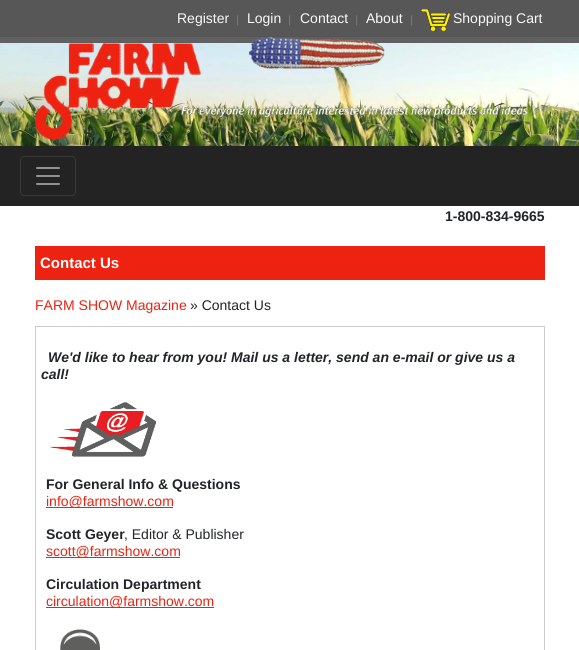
#include <cairo.h>
#include <math.h>
#include <stddef.h>

typedef struct { const char *family; double size; int italic, bold; unsigned color; } style_t;
static cairo_t *ctx;

static void ink(unsigned color) {
    cairo_set_source_rgb(ctx, (color >> 16) / 255.0, (color >> 8 & 255) / 255.0, (color & 255) / 255.0);
}

static void write(double x, double y, const char *s, const style_t *st) {
    cairo_select_font_face(ctx, st->family, st->italic ? CAIRO_FONT_SLANT_ITALIC : CAIRO_FONT_SLANT_NORMAL,
        st->bold ? CAIRO_FONT_WEIGHT_BOLD : CAIRO_FONT_WEIGHT_NORMAL);
    cairo_set_font_size(ctx, st->size);
    ink(st->color);
    cairo_move_to(ctx, x, y);
    cairo_show_text(ctx, s);
}

static void block(double x, double y, double w, double h, unsigned color) {
    ink(color);
    cairo_rectangle(ctx, x, y, w, h);
    cairo_fill(ctx);
}

static void round_path(double x, double y, double w, double h, double r) {
    cairo_new_sub_path(ctx);
    cairo_arc(ctx, x + w - r, y + h - r, r, 0, M_PI / 2);
    cairo_arc(ctx, x + r, y + h - r, r, M_PI / 2, M_PI);
    cairo_arc(ctx, x + r, y + r, r, M_PI, 1.5 * M_PI);
    cairo_arc(ctx, x + w - r, y + r, r, 1.5 * M_PI, 2 * M_PI);
    cairo_close_path(ctx);
}

static void paste(const char *path, double x, double y, double w, double h) {
    cairo_surface_t *image = cairo_image_surface_create_from_png(path);
    cairo_save(ctx);
    cairo_set_source_surface(ctx, image, x, y);
    cairo_rectangle(ctx, x, y, w, h);
    cairo_fill(ctx);
    cairo_restore(ctx);
    cairo_surface_destroy(image);
}

static const style_t s1 = {"Liberation Sans", 14, 0, 0, 0xf9f9f9};
static const style_t s2 = {"Open Sans", 10, 0, 0, 0x898989};
static const style_t s3 = {"Liberation Sans", 14, 0, 1, 0x212529};
static const style_t s4 = {"Liberation Sans", 15, 0, 1, 0xffffff};
static const style_t s5 = {"Liberation Sans", 14, 0, 0, 0xee2210};
static const style_t s6 = {"Liberation Sans", 14, 0, 0, 0x212529};
static const style_t s7 = {"Liberation Sans", 14, 1, 1, 0x212529};

int main(void) {
    cairo_surface_t *surface = cairo_image_surface_create(CAIRO_FORMAT_RGB24, 579, 650);
    ctx = cairo_create(surface);
    cairo_font_options_t *options = cairo_font_options_create();
    cairo_font_options_set_hint_metrics(options, CAIRO_HINT_METRICS_OFF);
    cairo_font_options_set_hint_style(options, CAIRO_HINT_STYLE_NONE);
    cairo_set_font_options(ctx, options);
    cairo_set_miter_limit(ctx, 4);
    ink(0xffffff);
    cairo_paint(ctx);
    block(0, 0, 579, 36, 0x575757);
    block(0, 36, 579, 1, 0x545454);
    write(177, 23, "Register", &s1);
    write(235, 23, "|", &s2);
    write(247, 23, "Login", &s1);
    write(287, 23, "|", &s2);
    write(300, 23, "Contact", &s1);
    write(354, 23, "|", &s2);
    write(366, 23, "About", &s1);
    write(409, 23, "|", &s2);
    paste("pic1.png", 421, 9, 29, 22);
    write(453, 23, "Shopping Cart", &s1);
    block(0, 37, 579, 6, 0x606060);
    paste("pic2.png", 0, 43, 579, 103);
    paste("pic3.png", 35, 37, 493, 103);
    block(0, 146, 579, 60, 0x232323);
    round_path(20.5, 156.5, 55, 39, 3.5);
    ink(0x393939);
    cairo_set_line_width(ctx, 1);
    cairo_stroke(ctx);
    paste("pic4.png", 36, 167, 24, 18);
    write(445, 221, "1-800-834-9665", &s3);
    block(35, 246, 510, 34, 0xee2210);
    write(40, 268, "Contact Us", &s4);
    write(35, 310, "FARM SHOW Magazine", &s5);
    write(190, 310, "» Contact Us", &s6);
    cairo_rectangle(ctx, 35.5, 326.5, 509, 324);
    ink(0xcccccc);
    cairo_stroke(ctx);
    write(48, 362, "We'd like to hear from you! Mail us a letter, send an e-mail or give us a", &s7);
    write(41, 379, "call!", &s7);
    paste("pic5.png", 49, 402, 108, 55);
    write(46, 489, "For General Info & Questions", &s3);
    block(46, 507, 127, 1, 0xee2210);
    write(46, 506, "info@farmshow.com", &s5);
    write(46, 539, "Scott Geyer", &s3);
    write(124, 539, ", Editor & Publisher", &s6);
    block(46, 557, 134, 1, 0xee2210);
    write(46, 556, "scott@farmshow.com", &s5);
    write(46, 589, "Circulation Department", &s3);
    block(46, 607, 168, 1, 0xee2210);
    write(46, 606, "circulation@farmshow.com", &s5);
    paste("pic6.png", 60, 629, 40, 21);
    cairo_surface_write_to_png(surface, "screenshot.png");
    cairo_font_options_destroy(options);
    cairo_destroy(ctx);
    cairo_surface_destroy(surface);
    return 0;
}
